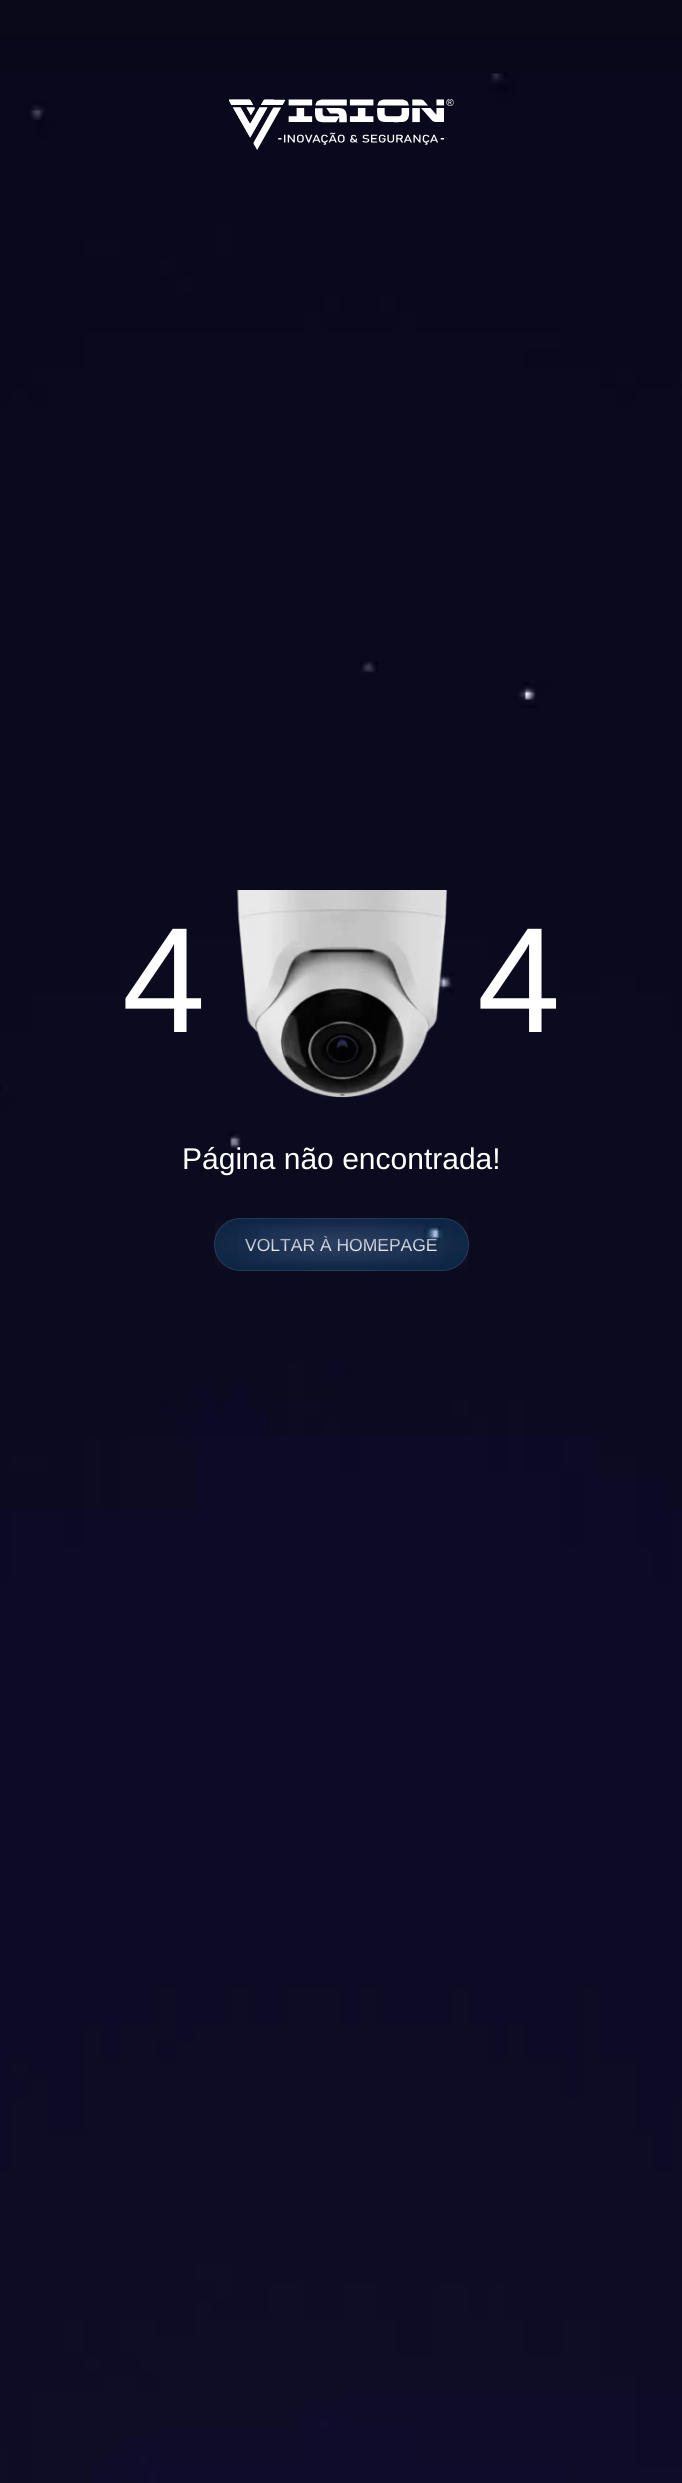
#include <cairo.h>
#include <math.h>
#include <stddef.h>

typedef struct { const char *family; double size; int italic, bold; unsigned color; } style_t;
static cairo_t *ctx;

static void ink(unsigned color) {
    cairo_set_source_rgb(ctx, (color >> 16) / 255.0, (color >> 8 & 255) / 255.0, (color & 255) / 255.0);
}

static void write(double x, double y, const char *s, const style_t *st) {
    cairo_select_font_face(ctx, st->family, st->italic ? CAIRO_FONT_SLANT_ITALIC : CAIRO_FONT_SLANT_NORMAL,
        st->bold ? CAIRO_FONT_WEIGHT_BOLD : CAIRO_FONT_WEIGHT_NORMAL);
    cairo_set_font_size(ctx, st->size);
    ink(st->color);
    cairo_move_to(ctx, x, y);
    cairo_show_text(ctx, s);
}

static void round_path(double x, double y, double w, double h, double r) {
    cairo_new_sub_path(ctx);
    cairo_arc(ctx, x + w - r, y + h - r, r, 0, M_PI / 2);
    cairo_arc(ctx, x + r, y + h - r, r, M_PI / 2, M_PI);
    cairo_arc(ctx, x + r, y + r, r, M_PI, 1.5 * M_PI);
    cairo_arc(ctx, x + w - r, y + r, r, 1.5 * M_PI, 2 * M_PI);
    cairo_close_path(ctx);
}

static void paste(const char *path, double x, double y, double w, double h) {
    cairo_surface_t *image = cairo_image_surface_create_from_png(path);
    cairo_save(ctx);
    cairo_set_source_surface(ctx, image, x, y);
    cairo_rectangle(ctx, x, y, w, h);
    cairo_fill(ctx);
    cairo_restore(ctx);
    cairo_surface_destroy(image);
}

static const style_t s1 = {"Liberation Sans", 150, 0, 0, 0xffffff};
static const style_t s2 = {"Liberation Sans", 30, 0, 0, 0xffffff};

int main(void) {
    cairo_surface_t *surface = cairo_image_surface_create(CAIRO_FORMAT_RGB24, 682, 2483);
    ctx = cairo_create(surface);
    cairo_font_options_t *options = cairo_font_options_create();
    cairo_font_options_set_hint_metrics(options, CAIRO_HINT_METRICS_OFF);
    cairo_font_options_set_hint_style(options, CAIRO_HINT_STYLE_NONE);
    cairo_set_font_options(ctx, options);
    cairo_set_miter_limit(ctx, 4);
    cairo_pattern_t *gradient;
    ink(0xffffff);
    cairo_paint(ctx);
    paste("pic1.png", 0, 0, 682, 2483);
    paste("pic2.png", 229, 99, 225, 51);
    write(122, 1032, "4", &s1);
    paste("pic3.png", 236, 890, 212, 208);
    write(477, 1032, "4", &s1);
    write(182, 1169, "Página não encontrada!", &s2);
    cairo_set_source_rgba(ctx, 0.031, 0.537, 0.812, 0.2);
    round_path(214, 1218, 255, 53, 26.5);
    cairo_fill(ctx);
    gradient = cairo_pattern_create_radial(0, 0, 0, 0, 0, 1);
    cairo_pattern_set_matrix(gradient, &(cairo_matrix_t){1.0 / 179, 0, 0, 1.0 / 36, -1.0 * 341 / 179, -1.0 * 1244 / 36});
    cairo_pattern_add_color_stop_rgba(gradient, 0, 1, 1, 1, 0.04);
    cairo_pattern_add_color_stop_rgba(gradient, 1, 1, 1, 1, 0);
    cairo_set_source(ctx, gradient);
    cairo_pattern_destroy(gradient);
    cairo_rectangle(ctx, 259, 1227, 164, 34);
    cairo_fill(ctx);
    gradient = cairo_pattern_create_radial(0, 0, 0, 0, 0, 1);
    cairo_pattern_set_matrix(gradient, &(cairo_matrix_t){1.0 / 179, 0, 0, 1.0 / 36, -1.0 * 341 / 179, -1.0 * 1193 / 36});
    cairo_pattern_add_color_stop_rgba(gradient, 0, 1, 1, 1, 0.08);
    cairo_pattern_add_color_stop_rgba(gradient, 1, 1, 1, 1, 0);
    cairo_set_source(ctx, gradient);
    cairo_pattern_destroy(gradient);
    cairo_rectangle(ctx, 309, 1218, 64, 1);
    cairo_fill(ctx);
    gradient = cairo_pattern_create_radial(0, 0, 0, 0, 0, 1);
    cairo_pattern_set_matrix(gradient, &(cairo_matrix_t){1.0 / 179, 0, 0, 1.0 / 36, -1.0 * 89 / 179, -1.0 * 1244 / 36});
    cairo_pattern_add_color_stop_rgba(gradient, 0, 1, 1, 1, 0.08);
    cairo_pattern_add_color_stop_rgba(gradient, 1, 1, 1, 1, 0);
    cairo_set_source(ctx, gradient);
    cairo_pattern_destroy(gradient);
    cairo_rectangle(ctx, 214, 1242, 1, 5);
    cairo_fill(ctx);
    gradient = cairo_pattern_create_radial(0, 0, 0, 0, 0, 1);
    cairo_pattern_set_matrix(gradient, &(cairo_matrix_t){1.0 / 179, 0, 0, 1.0 / 36, -1.0 * 341 / 179, -1.0 * 1244 / 36});
    cairo_pattern_add_color_stop_rgba(gradient, 0, 1, 1, 1, 0.08);
    cairo_pattern_add_color_stop_rgba(gradient, 1, 1, 1, 1, 0);
    cairo_set_source(ctx, gradient);
    cairo_pattern_destroy(gradient);
    cairo_rectangle(ctx, 215, 1219, 253, 51);
    cairo_fill(ctx);
    gradient = cairo_pattern_create_radial(0, 0, 0, 0, 0, 1);
    cairo_pattern_set_matrix(gradient, &(cairo_matrix_t){1.0 / 179, 0, 0, 1.0 / 36, -1.0 * 594 / 179, -1.0 * 1244 / 36});
    cairo_pattern_add_color_stop_rgba(gradient, 0, 1, 1, 1, 0.08);
    cairo_pattern_add_color_stop_rgba(gradient, 1, 1, 1, 1, 0);
    cairo_set_source(ctx, gradient);
    cairo_pattern_destroy(gradient);
    cairo_rectangle(ctx, 468, 1242, 1, 5);
    cairo_fill(ctx);
    gradient = cairo_pattern_create_radial(0, 0, 0, 0, 0, 1);
    cairo_pattern_set_matrix(gradient, &(cairo_matrix_t){1.0 / 179, 0, 0, 1.0 / 36, -1.0 * 341 / 179, -1.0 * 1296 / 36});
    cairo_pattern_add_color_stop_rgba(gradient, 0, 1, 1, 1, 0.08);
    cairo_pattern_add_color_stop_rgba(gradient, 1, 1, 1, 1, 0);
    cairo_set_source(ctx, gradient);
    cairo_pattern_destroy(gradient);
    cairo_rectangle(ctx, 309, 1270, 64, 1);
    cairo_fill(ctx);
    gradient = cairo_pattern_create_radial(0, 0, 0, 0, 0, 1);
    cairo_pattern_set_matrix(gradient, &(cairo_matrix_t){1.0 / 179, 0, 0, 1.0 / 36, -1.0 * 341 / 179, -1.0 * 1244 / 36});
    cairo_pattern_add_color_stop_rgba(gradient, 0, 0.522, 0.4, 1, 0.05);
    cairo_pattern_add_color_stop_rgba(gradient, 1, 0.522, 0.4, 1, 0);
    cairo_set_source(ctx, gradient);
    cairo_pattern_destroy(gradient);
    cairo_rectangle(ctx, 239, 1224, 204, 40);
    cairo_fill(ctx);
    round_path(214.5, 1218.5, 254, 52, 26);
    cairo_set_source_rgba(ctx, 1, 1, 1, 0.1);
    cairo_set_line_width(ctx, 1);
    cairo_stroke(ctx);
    cairo_set_font_size(ctx, 17.5);
    gradient = cairo_pattern_create_linear(341, 1234, 341, 1255);
    cairo_pattern_add_color_stop_rgba(gradient, 0.01, 0.569, 0.608, 0.675, 1);
    cairo_pattern_add_color_stop_rgba(gradient, 1, 1, 1, 1, 1);
    cairo_set_source(ctx, gradient);
    cairo_pattern_destroy(gradient);
    cairo_move_to(ctx, 245, 1251);
    cairo_show_text(ctx, "VOLTAR À HOMEPAGE");
    cairo_surface_write_to_png(surface, "screenshot.png");
    cairo_font_options_destroy(options);
    cairo_destroy(ctx);
    cairo_surface_destroy(surface);
    return 0;
}
